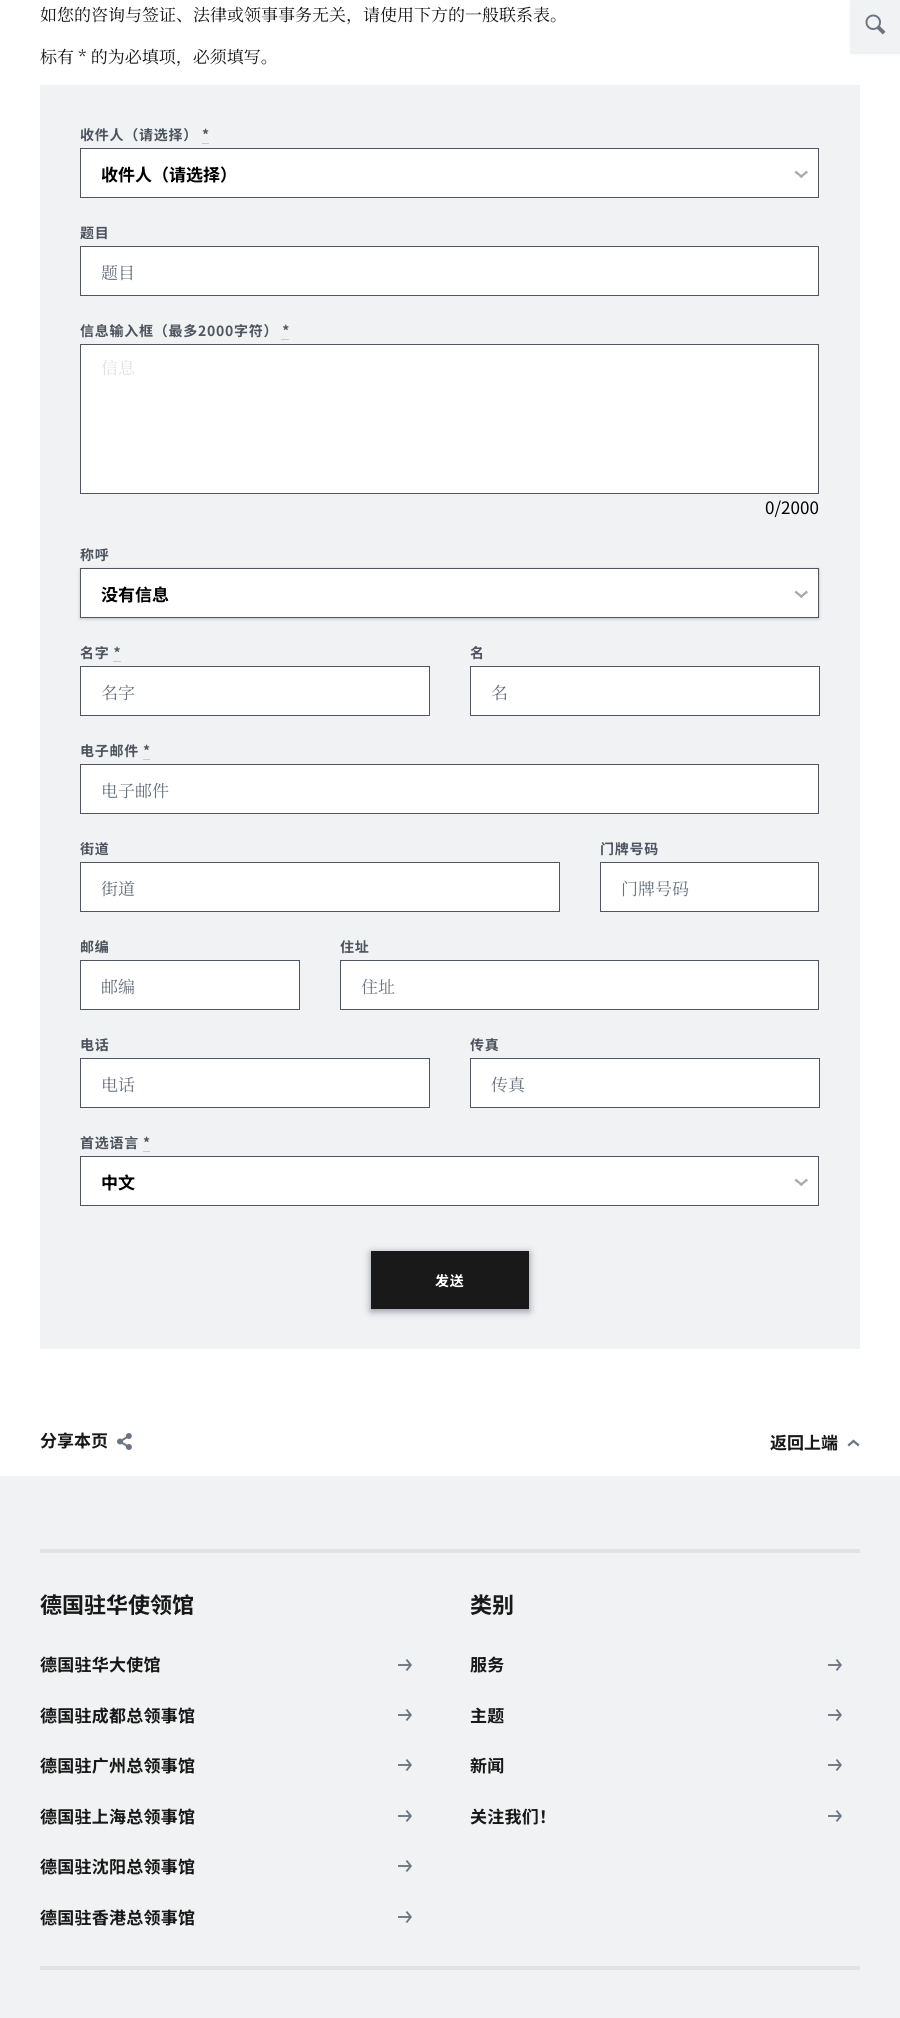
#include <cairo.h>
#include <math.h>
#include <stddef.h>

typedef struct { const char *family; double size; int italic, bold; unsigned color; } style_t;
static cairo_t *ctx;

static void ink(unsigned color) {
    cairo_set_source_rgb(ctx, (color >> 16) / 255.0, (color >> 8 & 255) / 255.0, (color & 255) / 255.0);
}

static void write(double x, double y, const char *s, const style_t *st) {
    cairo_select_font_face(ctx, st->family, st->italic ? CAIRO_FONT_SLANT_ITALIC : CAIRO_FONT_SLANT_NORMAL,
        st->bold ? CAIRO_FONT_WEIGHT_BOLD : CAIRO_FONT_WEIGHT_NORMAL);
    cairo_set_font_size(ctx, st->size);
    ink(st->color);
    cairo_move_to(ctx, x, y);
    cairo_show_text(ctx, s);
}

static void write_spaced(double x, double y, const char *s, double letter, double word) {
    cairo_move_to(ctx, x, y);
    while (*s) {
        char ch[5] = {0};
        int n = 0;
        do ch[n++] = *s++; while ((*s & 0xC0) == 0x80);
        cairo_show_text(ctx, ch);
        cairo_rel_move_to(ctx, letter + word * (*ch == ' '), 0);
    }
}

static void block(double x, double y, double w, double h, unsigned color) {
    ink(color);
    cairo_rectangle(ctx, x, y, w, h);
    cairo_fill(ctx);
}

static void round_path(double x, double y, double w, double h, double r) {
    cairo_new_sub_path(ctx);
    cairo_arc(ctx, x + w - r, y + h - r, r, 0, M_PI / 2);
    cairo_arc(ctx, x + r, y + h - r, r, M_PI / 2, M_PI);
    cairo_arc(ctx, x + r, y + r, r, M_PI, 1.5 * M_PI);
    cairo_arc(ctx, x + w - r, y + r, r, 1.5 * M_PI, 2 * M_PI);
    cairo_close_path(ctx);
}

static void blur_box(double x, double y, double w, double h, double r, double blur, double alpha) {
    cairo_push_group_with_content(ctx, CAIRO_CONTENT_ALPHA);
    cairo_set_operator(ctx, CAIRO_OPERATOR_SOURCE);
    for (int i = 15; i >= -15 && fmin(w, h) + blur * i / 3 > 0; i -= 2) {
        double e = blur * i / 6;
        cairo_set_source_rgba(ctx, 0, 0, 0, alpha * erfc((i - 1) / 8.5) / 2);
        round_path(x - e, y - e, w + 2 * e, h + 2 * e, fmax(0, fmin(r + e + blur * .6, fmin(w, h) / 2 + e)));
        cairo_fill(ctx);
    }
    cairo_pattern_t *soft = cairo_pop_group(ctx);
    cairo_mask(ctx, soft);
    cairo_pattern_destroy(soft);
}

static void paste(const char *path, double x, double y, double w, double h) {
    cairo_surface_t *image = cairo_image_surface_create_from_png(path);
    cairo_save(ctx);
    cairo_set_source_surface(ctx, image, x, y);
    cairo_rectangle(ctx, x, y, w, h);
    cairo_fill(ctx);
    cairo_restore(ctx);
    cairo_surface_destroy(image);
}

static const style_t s1 = {"Noto Serif SC ExtraLight", 17, 0, 0, 0x191919};
static const style_t s2 = {"Noto Sans SC Thin", 17, 0, 0, 0x000000};
static const style_t s3 = {"Noto Serif SC ExtraLight", 17, 0, 0, 0x6b7581};
static const style_t s4 = {"Noto Serif SC ExtraLight", 17, 0, 0, 0xe0e2e4};
static const style_t s5 = {"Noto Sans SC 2 Thin", 17, 0, 0, 0x000000};
static const style_t s6 = {"Noto Sans SC Thin", 17, 0, 0, 0x191919};
static const style_t s7 = {"Noto Sans SC Thin", 22, 0, 0, 0x191919};

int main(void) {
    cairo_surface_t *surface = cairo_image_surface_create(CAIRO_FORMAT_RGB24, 900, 2018);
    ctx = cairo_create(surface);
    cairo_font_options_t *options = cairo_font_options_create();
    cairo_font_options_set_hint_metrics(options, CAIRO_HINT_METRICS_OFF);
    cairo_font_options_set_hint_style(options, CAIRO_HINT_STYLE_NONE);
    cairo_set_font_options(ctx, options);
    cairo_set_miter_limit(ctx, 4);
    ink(0xffffff);
    cairo_paint(ctx);
    write(40, 21, "如您的咨询与签证、法律或领事事务无关，请使用下方的一般联系表。", &s1);
    write(40, 63, "标有 * 的为必填项，必须填写。", &s1);
    block(40, 85, 820, 1264, 0xf1f2f3);
    cairo_select_font_face(ctx, "Noto Sans SC Thin", CAIRO_FONT_SLANT_NORMAL, CAIRO_FONT_WEIGHT_NORMAL);
    cairo_set_font_size(ctx, 14);
    ink(0x4f5661);
    write_spaced(80, 140, "收件人（请选择） *", 0.75, 0);
    block(202, 143, 7, 1, 0xc9cbcf);
    ink(0xffffff);
    cairo_rectangle(ctx, 80.5, 148.5, 738, 49);
    cairo_fill_preserve(ctx);
    ink(0x4f5661);
    cairo_set_line_width(ctx, 1);
    cairo_stroke(ctx);
    write(101, 181, "收件人（请选择）", &s2);
    ink(0xa6acb3);
    cairo_new_path(ctx);
    cairo_move_to(ctx, 796, 170.5);
    cairo_line_to(ctx, 803, 176.5);
    cairo_line_to(ctx, 801.5, 178);
    cairo_line_to(ctx, 794.5, 172.5);
    cairo_close_path(ctx);
    cairo_fill(ctx);
    cairo_new_path(ctx);
    cairo_move_to(ctx, 799.5, 176.5);
    cairo_line_to(ctx, 806.5, 170.5);
    cairo_line_to(ctx, 808, 172.5);
    cairo_line_to(ctx, 801, 178);
    cairo_close_path(ctx);
    cairo_fill(ctx);
    cairo_set_font_size(ctx, 14);
    ink(0x4f5661);
    write_spaced(80, 238, "题目", 0.75, 0);
    ink(0xffffff);
    cairo_rectangle(ctx, 80.5, 246.5, 738, 49);
    cairo_fill_preserve(ctx);
    ink(0x4f5661);
    cairo_stroke(ctx);
    write(101, 279, "题目", &s3);
    cairo_select_font_face(ctx, "Noto Sans SC Thin", CAIRO_FONT_SLANT_NORMAL, CAIRO_FONT_WEIGHT_NORMAL);
    cairo_set_font_size(ctx, 14);
    ink(0x4f5661);
    write_spaced(80, 336, "信息输入框（最多2000字符） *", 0.75, 0);
    block(281, 339, 8, 1, 0xc9cbcf);
    ink(0xffffff);
    cairo_rectangle(ctx, 80.5, 344.5, 738, 149);
    cairo_fill_preserve(ctx);
    ink(0x4f5661);
    cairo_stroke(ctx);
    write(101, 374, "信息", &s4);
    write(765, 514, "0/2000", &s5);
    cairo_select_font_face(ctx, "Noto Sans SC Thin", CAIRO_FONT_SLANT_NORMAL, CAIRO_FONT_WEIGHT_NORMAL);
    cairo_set_font_size(ctx, 14);
    ink(0x4f5661);
    write_spaced(80, 560, "称呼", 0.75, 0);
    ink(0x89919a);
    blur_box(80, 569, 739, 50, 0, 1.5, 0.5);
    ink(0xffffff);
    cairo_rectangle(ctx, 80.5, 568.5, 738, 49);
    cairo_fill_preserve(ctx);
    ink(0x4f5661);
    cairo_stroke(ctx);
    write(101, 601, "没有信息", &s2);
    ink(0xa6acb3);
    cairo_new_path(ctx);
    cairo_move_to(ctx, 796, 590.5);
    cairo_line_to(ctx, 803, 596.5);
    cairo_line_to(ctx, 801.5, 598);
    cairo_line_to(ctx, 794.5, 592.5);
    cairo_close_path(ctx);
    cairo_fill(ctx);
    cairo_new_path(ctx);
    cairo_move_to(ctx, 799.5, 596.5);
    cairo_line_to(ctx, 806.5, 590.5);
    cairo_line_to(ctx, 808, 592.5);
    cairo_line_to(ctx, 801, 598);
    cairo_close_path(ctx);
    cairo_fill(ctx);
    cairo_set_font_size(ctx, 14);
    ink(0x4f5661);
    write_spaced(80, 658, "名字 *", 0.75, 0);
    block(113, 661, 8, 1, 0xc9cbcf);
    ink(0xffffff);
    cairo_rectangle(ctx, 80.5, 666.5, 349, 49);
    cairo_fill_preserve(ctx);
    ink(0x4f5661);
    cairo_stroke(ctx);
    write(101, 699, "名字", &s3);
    cairo_select_font_face(ctx, "Noto Sans SC Thin", CAIRO_FONT_SLANT_NORMAL, CAIRO_FONT_WEIGHT_NORMAL);
    cairo_set_font_size(ctx, 14);
    ink(0x4f5661);
    write_spaced(470, 658, "名", 0.75, 0);
    ink(0xffffff);
    cairo_rectangle(ctx, 470.5, 666.5, 349, 49);
    cairo_fill_preserve(ctx);
    ink(0x4f5661);
    cairo_stroke(ctx);
    write(491, 699, "名", &s3);
    cairo_select_font_face(ctx, "Noto Sans SC Thin", CAIRO_FONT_SLANT_NORMAL, CAIRO_FONT_WEIGHT_NORMAL);
    cairo_set_font_size(ctx, 14);
    ink(0x4f5661);
    write_spaced(80, 756, "电子邮件 *", 0.75, 0);
    block(143, 759, 7, 1, 0xc9cbcf);
    ink(0xffffff);
    cairo_rectangle(ctx, 80.5, 764.5, 738, 49);
    cairo_fill_preserve(ctx);
    ink(0x4f5661);
    cairo_stroke(ctx);
    write(101, 797, "电子邮件", &s3);
    cairo_select_font_face(ctx, "Noto Sans SC Thin", CAIRO_FONT_SLANT_NORMAL, CAIRO_FONT_WEIGHT_NORMAL);
    cairo_set_font_size(ctx, 14);
    ink(0x4f5661);
    write_spaced(80, 854, "街道", 0.75, 0);
    ink(0xffffff);
    cairo_rectangle(ctx, 80.5, 862.5, 479, 49);
    cairo_fill_preserve(ctx);
    ink(0x4f5661);
    cairo_stroke(ctx);
    write(101, 895, "街道", &s3);
    cairo_select_font_face(ctx, "Noto Sans SC Thin", CAIRO_FONT_SLANT_NORMAL, CAIRO_FONT_WEIGHT_NORMAL);
    cairo_set_font_size(ctx, 14);
    ink(0x4f5661);
    write_spaced(600, 854, "门牌号码", 0.75, 0);
    ink(0xffffff);
    cairo_rectangle(ctx, 600.5, 862.5, 218, 49);
    cairo_fill_preserve(ctx);
    ink(0x4f5661);
    cairo_stroke(ctx);
    write(621, 895, "门牌号码", &s3);
    cairo_select_font_face(ctx, "Noto Sans SC Thin", CAIRO_FONT_SLANT_NORMAL, CAIRO_FONT_WEIGHT_NORMAL);
    cairo_set_font_size(ctx, 14);
    ink(0x4f5661);
    write_spaced(80, 952, "邮编", 0.75, 0);
    ink(0xffffff);
    cairo_rectangle(ctx, 80.5, 960.5, 219, 49);
    cairo_fill_preserve(ctx);
    ink(0x4f5661);
    cairo_stroke(ctx);
    write(101, 993, "邮编", &s3);
    cairo_select_font_face(ctx, "Noto Sans SC Thin", CAIRO_FONT_SLANT_NORMAL, CAIRO_FONT_WEIGHT_NORMAL);
    cairo_set_font_size(ctx, 14);
    ink(0x4f5661);
    write_spaced(340, 952, "住址", 0.75, 0);
    ink(0xffffff);
    cairo_rectangle(ctx, 340.5, 960.5, 478, 49);
    cairo_fill_preserve(ctx);
    ink(0x4f5661);
    cairo_stroke(ctx);
    write(361, 993, "住址", &s3);
    cairo_select_font_face(ctx, "Noto Sans SC Thin", CAIRO_FONT_SLANT_NORMAL, CAIRO_FONT_WEIGHT_NORMAL);
    cairo_set_font_size(ctx, 14);
    ink(0x4f5661);
    write_spaced(80, 1050, "电话", 0.75, 0);
    ink(0xffffff);
    cairo_rectangle(ctx, 80.5, 1058.5, 349, 49);
    cairo_fill_preserve(ctx);
    ink(0x4f5661);
    cairo_stroke(ctx);
    write(101, 1091, "电话", &s3);
    cairo_select_font_face(ctx, "Noto Sans SC Thin", CAIRO_FONT_SLANT_NORMAL, CAIRO_FONT_WEIGHT_NORMAL);
    cairo_set_font_size(ctx, 14);
    ink(0x4f5661);
    write_spaced(470, 1050, "传真", 0.75, 0);
    ink(0xffffff);
    cairo_rectangle(ctx, 470.5, 1058.5, 349, 49);
    cairo_fill_preserve(ctx);
    ink(0x4f5661);
    cairo_stroke(ctx);
    write(491, 1091, "传真", &s3);
    cairo_select_font_face(ctx, "Noto Sans SC Thin", CAIRO_FONT_SLANT_NORMAL, CAIRO_FONT_WEIGHT_NORMAL);
    cairo_set_font_size(ctx, 14);
    ink(0x4f5661);
    write_spaced(80, 1148, "首选语言 *", 0.75, 0);
    block(143, 1151, 7, 1, 0xc9cbcf);
    ink(0xffffff);
    cairo_rectangle(ctx, 80.5, 1156.5, 738, 49);
    cairo_fill_preserve(ctx);
    ink(0x4f5661);
    cairo_stroke(ctx);
    write(101, 1189, "中文", &s2);
    ink(0xa6acb3);
    cairo_new_path(ctx);
    cairo_move_to(ctx, 796, 1178.5);
    cairo_line_to(ctx, 803, 1184.5);
    cairo_line_to(ctx, 801.5, 1186);
    cairo_line_to(ctx, 794.5, 1180.5);
    cairo_close_path(ctx);
    cairo_fill(ctx);
    cairo_new_path(ctx);
    cairo_move_to(ctx, 799.5, 1184.5);
    cairo_line_to(ctx, 806.5, 1178.5);
    cairo_line_to(ctx, 808, 1180.5);
    cairo_line_to(ctx, 801, 1186);
    cairo_close_path(ctx);
    cairo_fill(ctx);
    ink(0x89919a);
    blur_box(371, 1253, 158, 58, 0, 4, 1);
    block(371, 1251, 158, 58, 0x191919);
    cairo_set_font_size(ctx, 14);
    ink(0xffffff);
    write_spaced(435, 1286, "发送", 0.75, 0);
    write(40, 1447, "分享本页", &s6);
    paste("pic1.png", 117, 1433, 15, 17);
    write(770, 1449, "返回上端", &s6);
    paste("pic2.png", 847, 1439, 13, 8);
    block(0, 1476, 900, 542, 0xf1f2f3);
    block(40, 1549, 820, 4, 0xe0e2e4);
    write(40, 1613, "德国驻华使领馆", &s7);
    cairo_set_font_size(ctx, 17);
    write_spaced(40, 1671, "德国驻华大使馆", 0.25, 0);
    paste("pic3.png", 398, 1659, 14, 12);
    write_spaced(40, 1722, "德国驻成都总领事馆", 0.25, 0);
    paste("pic3.png", 398, 1709, 14, 12);
    write_spaced(40, 1772, "德国驻广州总领事馆", 0.25, 0);
    paste("pic3.png", 398, 1759, 14, 12);
    write_spaced(40, 1823, "德国驻上海总领事馆", 0.25, 0);
    paste("pic3.png", 398, 1810, 14, 12);
    write_spaced(40, 1873, "德国驻沈阳总领事馆", 0.25, 0);
    paste("pic3.png", 398, 1860, 14, 12);
    write_spaced(40, 1924, "德国驻香港总领事馆", 0.25, 0);
    paste("pic3.png", 398, 1911, 14, 12);
    write(470, 1613, "类别", &s7);
    cairo_set_font_size(ctx, 17);
    write_spaced(470, 1671, "服务", 0.25, 0);
    paste("pic3.png", 828, 1659, 14, 12);
    write_spaced(470, 1722, "主题", 0.25, 0);
    paste("pic3.png", 828, 1709, 14, 12);
    write_spaced(470, 1772, "新闻", 0.25, 0);
    paste("pic3.png", 828, 1759, 14, 12);
    write_spaced(470, 1823, "关注我们！", 0.25, 0);
    paste("pic3.png", 828, 1810, 14, 12);
    block(40, 1966, 820, 4, 0xe0e2e4);
    ink(0xe0e2e4);
    blur_box(851, 1, 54, 52, 0, 1.5, 1);
    block(851, 0, 49, 52, 0xf1f2f3);
    paste("pic4.png", 865, 14, 21, 21);
    cairo_surface_write_to_png(surface, "screenshot.png");
    cairo_font_options_destroy(options);
    cairo_destroy(ctx);
    cairo_surface_destroy(surface);
    return 0;
}
